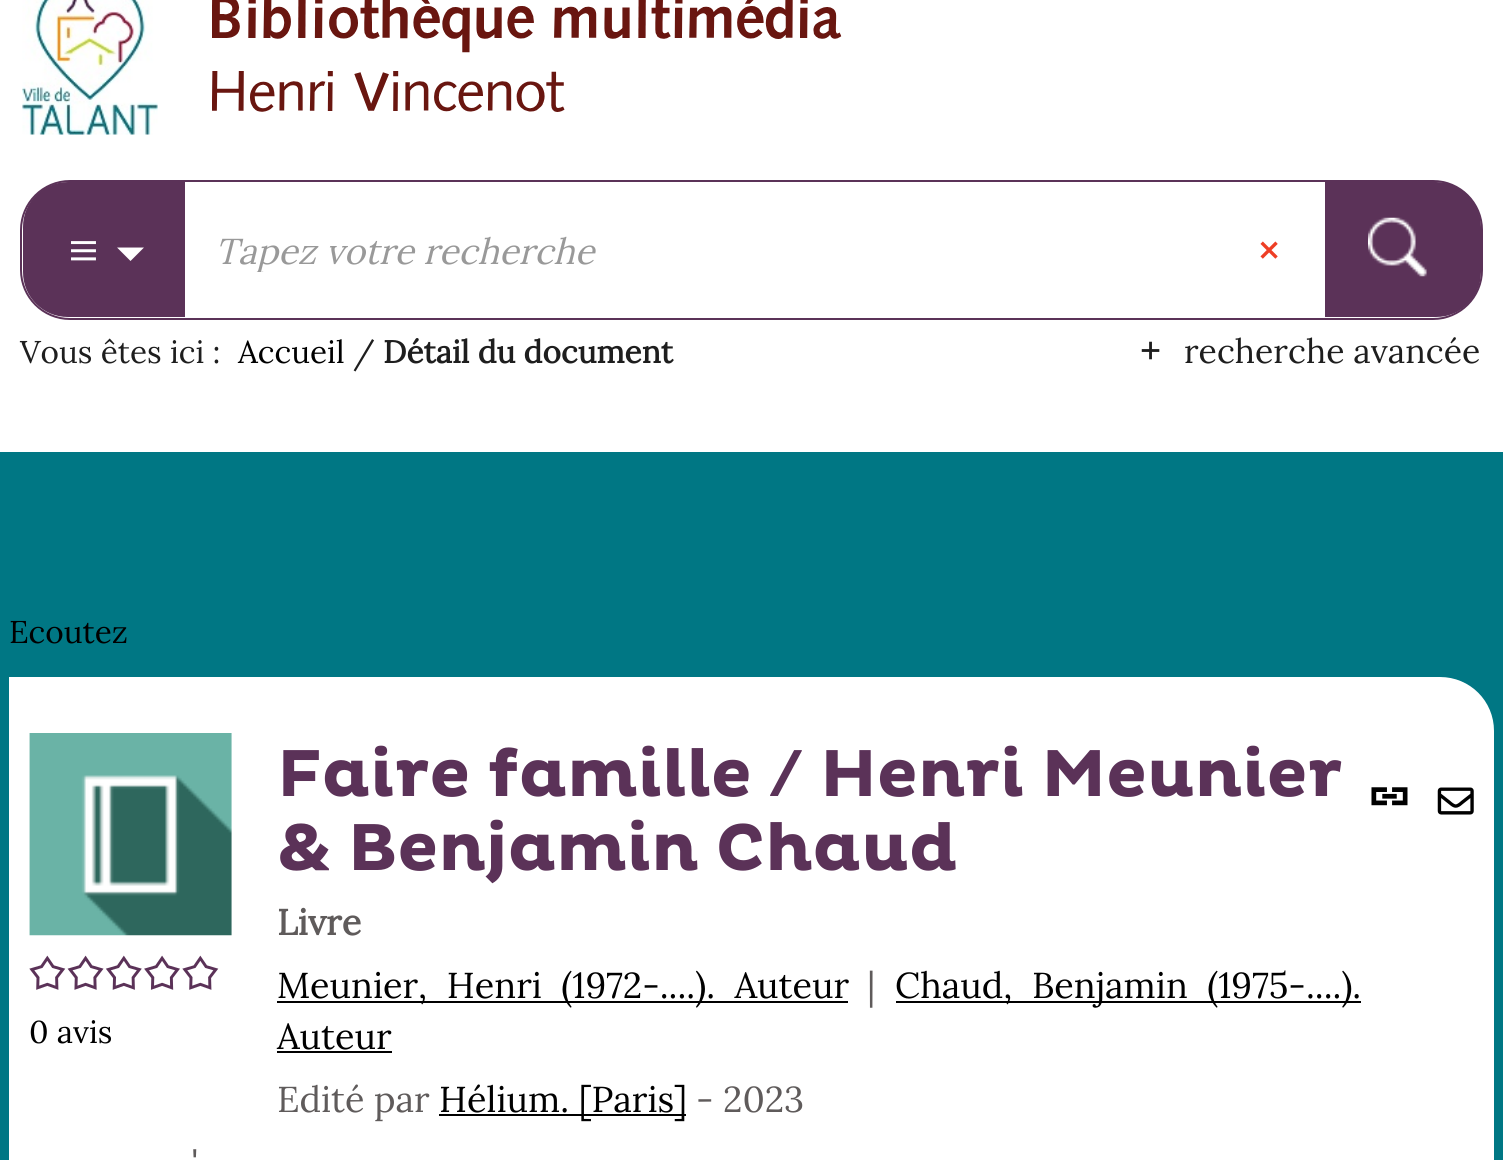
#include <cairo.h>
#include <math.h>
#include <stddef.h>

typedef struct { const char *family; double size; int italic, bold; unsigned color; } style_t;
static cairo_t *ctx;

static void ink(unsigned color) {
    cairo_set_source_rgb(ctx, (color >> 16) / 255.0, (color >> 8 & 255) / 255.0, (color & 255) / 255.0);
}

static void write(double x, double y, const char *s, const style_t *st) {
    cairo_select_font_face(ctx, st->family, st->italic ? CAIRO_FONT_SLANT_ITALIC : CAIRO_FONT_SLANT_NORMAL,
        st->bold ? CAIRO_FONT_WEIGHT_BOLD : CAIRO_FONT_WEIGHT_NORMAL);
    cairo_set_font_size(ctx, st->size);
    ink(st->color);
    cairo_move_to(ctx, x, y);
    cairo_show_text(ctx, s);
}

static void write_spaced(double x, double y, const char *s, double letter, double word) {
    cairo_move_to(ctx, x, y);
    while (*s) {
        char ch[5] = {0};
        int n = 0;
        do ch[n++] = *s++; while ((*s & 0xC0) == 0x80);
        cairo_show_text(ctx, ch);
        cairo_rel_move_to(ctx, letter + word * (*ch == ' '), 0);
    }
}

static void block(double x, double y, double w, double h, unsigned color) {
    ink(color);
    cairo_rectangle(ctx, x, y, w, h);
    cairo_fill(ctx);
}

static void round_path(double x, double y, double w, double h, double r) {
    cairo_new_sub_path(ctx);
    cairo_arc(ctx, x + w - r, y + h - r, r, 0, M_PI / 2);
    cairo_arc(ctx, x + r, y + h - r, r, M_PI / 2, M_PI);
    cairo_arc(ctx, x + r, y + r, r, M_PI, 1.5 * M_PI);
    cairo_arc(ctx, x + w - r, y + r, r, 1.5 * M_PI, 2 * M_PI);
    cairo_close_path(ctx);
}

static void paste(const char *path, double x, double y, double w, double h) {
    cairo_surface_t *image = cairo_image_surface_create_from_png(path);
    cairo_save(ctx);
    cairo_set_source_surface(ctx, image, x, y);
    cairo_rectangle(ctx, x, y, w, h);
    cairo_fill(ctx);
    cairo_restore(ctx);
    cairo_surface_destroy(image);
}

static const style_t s1 = {"Lora", 36, 1, 0, 0x999999};
static const style_t s2 = {"Lora", 33.75, 0, 0, 0x1e1e1e};
static const style_t s3 = {"Lora", 31.5, 0, 0, 0x1e1e1e};
static const style_t s4 = {"Lora", 31.5, 0, 0, 0x000000};
static const style_t s5 = {"Lora", 31.5, 0, 1, 0x1e1e1e};
static const style_t s6 = {"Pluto", 67.5, 0, 1, 0x5b3258};
static const style_t s7 = {"Lora", 36, 0, 1, 0x5f5b5b};
static const style_t s8 = {"Lora", 36, 0, 0, 0x5f5b5b};
static const style_t s9 = {"Lora", 36, 0, 0, 0x000000};

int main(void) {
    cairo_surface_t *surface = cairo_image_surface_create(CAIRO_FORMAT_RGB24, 1503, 1160);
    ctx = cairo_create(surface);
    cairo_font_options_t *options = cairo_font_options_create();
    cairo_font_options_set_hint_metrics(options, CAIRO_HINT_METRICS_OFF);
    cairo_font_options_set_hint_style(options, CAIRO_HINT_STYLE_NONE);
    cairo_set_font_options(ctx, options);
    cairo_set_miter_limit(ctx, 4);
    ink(0x007784);
    cairo_paint(ctx);
    block(0, 0, 1503, 452, 0xffffff);
    paste("pic1.png", 22, 0, 136, 135);
    paste("pic2.png", 212, 0, 630, 112);
    round_path(21, 181, 1461, 138, 49);
    ink(0x5b3258);
    cairo_stroke(ctx);
    cairo_new_path(ctx);
    cairo_move_to(ctx, 68, 183);
    cairo_line_to(ctx, 186, 183);
    cairo_line_to(ctx, 186, 316);
    cairo_line_to(ctx, 68, 316);
    cairo_curve_to(ctx, 43.5, 316, 24, 296.5, 24, 272);
    cairo_line_to(ctx, 24, 227);
    cairo_curve_to(ctx, 24, 202.5, 43.5, 183, 68, 183);
    cairo_close_path(ctx);
    cairo_fill_preserve(ctx);
    cairo_stroke(ctx);
    paste("pic3.png", 71, 241, 25, 20);
    ink(0xffffff);
    cairo_new_path(ctx);
    cairo_move_to(ctx, 117, 247.5);
    cairo_line_to(ctx, 144, 247.5);
    cairo_line_to(ctx, 130.5, 261);
    cairo_close_path(ctx);
    cairo_fill(ctx);
    block(185, 182, 2, 135, 0xffffff);
    cairo_save(ctx);
    cairo_rectangle(ctx, 214, 227, 979, 45);
    cairo_clip(ctx);
    write(215, 264, "Tapez votre recherche", &s1);
    cairo_restore(ctx);
    paste("pic4.png", 1260, 241, 18, 18);
    ink(0x5b3258);
    cairo_new_path(ctx);
    cairo_move_to(ctx, 1326, 183);
    cairo_line_to(ctx, 1436, 183);
    cairo_curve_to(ctx, 1460.5, 183, 1480, 202.5, 1480, 227);
    cairo_line_to(ctx, 1480, 272);
    cairo_curve_to(ctx, 1480, 296.5, 1460.5, 316, 1436, 316);
    cairo_line_to(ctx, 1326, 316);
    cairo_close_path(ctx);
    cairo_fill_preserve(ctx);
    cairo_stroke(ctx);
    paste("pic5.png", 1368, 217, 59, 60);
    paste("pic6.png", 1141, 341, 19, 19);
    write(1184, 363, "recherche avancée", &s2);
    write(20, 363, "Vous êtes ici :", &s3);
    write(238, 363, "Accueil", &s4);
    write(353, 363, "/", &s3);
    write(383, 363, "Détail du document", &s5);
    write(9, 643, "Ecoutez", &s4);
    ink(0xffffff);
    cairo_new_path(ctx);
    cairo_move_to(ctx, 9, 677);
    cairo_line_to(ctx, 1440, 677);
    cairo_curve_to(ctx, 1470, 677, 1494, 701, 1494, 731);
    cairo_line_to(ctx, 1494, 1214);
    cairo_line_to(ctx, 63, 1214);
    cairo_curve_to(ctx, 33, 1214, 9, 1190, 9, 1160);
    cairo_close_path(ctx);
    cairo_fill(ctx);
    paste("pic7.png", 29, 733, 203, 203);
    paste("pic8.png", 29, 955, 37, 35);
    paste("pic9.png", 67, 955, 37, 35);
    paste("pic10.png", 105, 955, 37, 35);
    paste("pic11.png", 144, 955, 36, 35);
    paste("pic8.png", 182, 955, 37, 35);
    write(29, 1043, "0 avis", &s4);
    write(277, 796, "Faire famille / Henri Meunier", &s6);
    write(277, 870, "& Benjamin Chaud", &s6);
    write(277, 935, "Livre", &s7);
    block(277, 1001, 571, 2, 0x000000);
    cairo_select_font_face(ctx, "Lora", CAIRO_FONT_SLANT_NORMAL, CAIRO_FONT_WEIGHT_NORMAL);
    write_spaced(277, 998, "Meunier, Henri (1972-....). Auteur", 0, 10);
    write(867, 998, "|", &s8);
    block(896, 1001, 465, 2, 0x000000);
    write_spaced(895, 998, "Chaud, Benjamin (1975-....).", 0, 10);
    write(277, 1049, "Auteur", &s9);
    block(277, 1051, 115, 2, 0x000000);
    write(277, 1112, "Edité par", &s8);
    block(439, 1114, 247, 2, 0x000000);
    write(439, 1112, "Hélium. [Paris]", &s9);
    write(696, 1112, "- 2023", &s8);
    write_spaced(191, 1175, "'", 0, 6);
    paste("pic12.png", 1371, 787, 37, 19);
    paste("pic13.png", 1437, 787, 37, 28);
    cairo_surface_write_to_png(surface, "screenshot.png");
    cairo_font_options_destroy(options);
    cairo_destroy(ctx);
    cairo_surface_destroy(surface);
    return 0;
}
